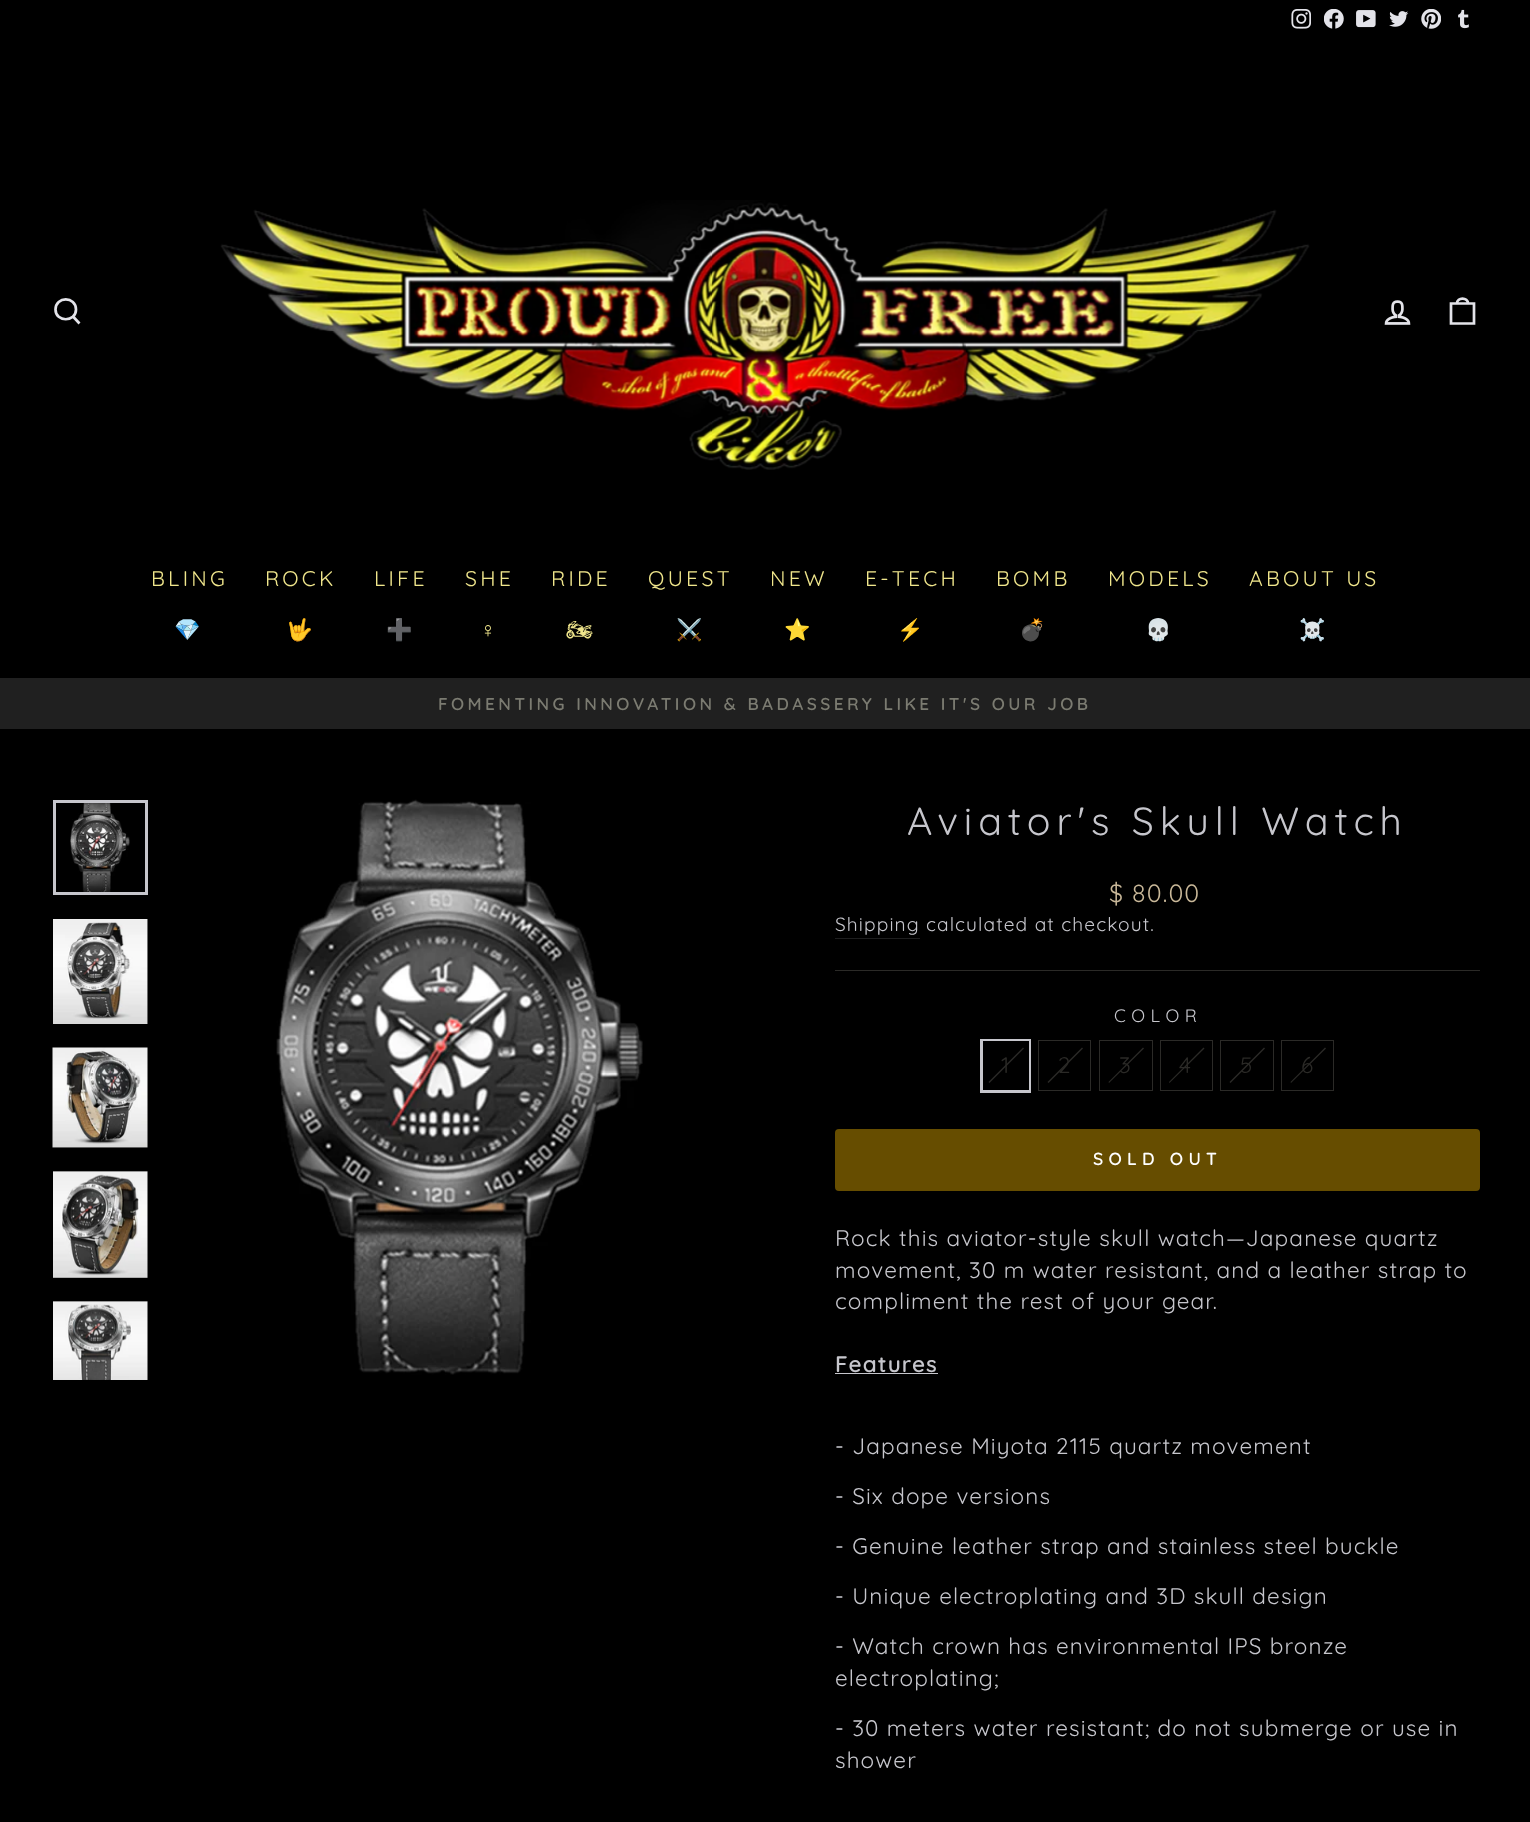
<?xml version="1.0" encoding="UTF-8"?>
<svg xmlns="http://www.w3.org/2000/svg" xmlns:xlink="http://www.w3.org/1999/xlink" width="1530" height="1822">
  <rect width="100%" height="100%" fill="#000000" />
  <image x="1291" y="9" width="20" height="20" xlink:href="image1.png" />
  <image x="1324" y="9" width="20" height="20" xlink:href="image2.png" />
  <image x="1356" y="10" width="20" height="18" xlink:href="image3.png" />
  <image x="1389" y="11" width="20" height="16" xlink:href="image4.png" />
  <image x="1421" y="9" width="20" height="20" xlink:href="image5.png" />
  <image x="1458" y="9" width="11" height="20" xlink:href="image6.png" />
  <path d="M 76 309.5 c 0 13 -20.5 13 -20.5 0 c 0 -13.5 20.5 -13.5 20.5 0 z m 3.5 14 l -6.5 -7" fill="none" stroke="#e3e3e9" stroke-width="2.7" />
  <image x="220" y="200" width="1090" height="270" xlink:href="image7.png" />
  <image x="1384" y="300" width="27" height="25" xlink:href="image8.png" />
  <path d="M 1451 303.5 h 23 v 20 h -23 z m 6 0 c 0 -6.5 11 -6.5 11 0" fill="none" stroke="#e3e3e9" stroke-width="2.7" />
  <rect y="678" width="1530" height="51" fill="#202020" />
  <image x="70" y="803" width="60" height="89" xlink:href="image9.png" />
  <rect x="54.5" y="801.5" width="92" height="92" fill="none" stroke="#c6c6cc" stroke-width="3" />
  <image x="53" y="919" width="95" height="105" xlink:href="image10.png" />
  <image x="52" y="1047" width="96" height="101" xlink:href="image11.png" />
  <image x="53" y="1171" width="95" height="107" xlink:href="image12.png" />
  <image x="53" y="1301" width="95" height="79" xlink:href="image13.png" />
  <image x="276" y="799" width="367" height="576" xlink:href="image14.png" />
  <rect x="835" y="938" width="85" height="1" fill="#1e1e1f" />
  <rect x="835" y="970" width="645" height="1" fill="#2b2a27" />
  <rect x="981.5" y="1040.5" width="48" height="51" fill="none" stroke="#c6c6cc" stroke-width="3" />
  <rect x="983" y="1041" width="46" height="49" fill="#000000" />
  <path d="M 1023 1047.5 l 1 1 l -34.5 34.5 l -1 -1 z" fill="#2b2a27" />
  <rect x="1038.5" y="1040.5" width="52" height="50" fill="none" stroke="#2b2a27" />
  <path d="M 1082 1047.5 l 1 1 l -34.5 34.5 l -1 -1 z" fill="#2b2a27" />
  <rect x="1099.5" y="1040.5" width="53" height="50" fill="none" stroke="#2b2a27" />
  <path d="M 1143 1047.5 l 1 1 l -35 34.5 l -0.5 -1 z" fill="#2b2a27" />
  <rect x="1160.5" y="1040.5" width="52" height="50" fill="none" stroke="#2b2a27" />
  <path d="M 1203.5 1047.5 l 1 1 l -35 34.5 l -0.5 -1 z" fill="#2b2a27" />
  <rect x="1220.5" y="1040.5" width="53" height="50" fill="none" stroke="#2b2a27" />
  <path d="M 1264 1047.5 l 1 1 l -34.5 34.5 l -1 -1 z" fill="#2b2a27" />
  <rect x="1281.5" y="1040.5" width="52" height="50" fill="none" stroke="#2b2a27" />
  <path d="M 1325 1047.5 l 1 1 l -35 34.5 l -0.5 -1 z" fill="#2b2a27" />
  <rect x="835" y="1129" width="645" height="62" rx="4" fill="#664d00" />
  <rect x="835" y="1373" width="103" height="1" fill="#c6c6cc" />
  <text x="151" y="586" style="font-family: Quicksand; font-size: 21.25px; letter-spacing: 3.25px; fill: #f0e68c">BLING</text>
  <text x="174" y="637" style="font-family: Noto Color Emoji; font-size: 21.25px; letter-spacing: 3.25px; fill: #f0e68c">💎</text>
  <text x="265" y="586" style="font-family: Quicksand; font-size: 21.25px; letter-spacing: 3.25px; fill: #f0e68c">ROCK</text>
  <text x="286" y="637" style="font-family: Noto Color Emoji; font-size: 21.25px; letter-spacing: 3.25px; fill: #f0e68c">🤟</text>
  <text x="374" y="586" style="font-family: Quicksand; font-size: 21.25px; letter-spacing: 3.25px; fill: #f0e68c">LIFE</text>
  <text x="386" y="637" style="font-family: Noto Color Emoji; font-size: 21.25px; letter-spacing: 3.25px; fill: #f0e68c">➕</text>
  <text x="465" y="586" style="font-family: Quicksand; font-size: 21.25px; letter-spacing: 3.25px; fill: #f0e68c">SHE</text>
  <text x="480" y="637" style="font-family: Liberation Sans; font-size: 21.25px; letter-spacing: 3.25px; fill: #f0e68c">♀</text>
  <text x="551" y="586" style="font-family: Quicksand; font-size: 21.25px; letter-spacing: 3.25px; fill: #f0e68c">RIDE</text>
  <text x="566" y="637" style="font-family: Noto Emoji; font-size: 21.25px; letter-spacing: 3.25px; fill: #f0e68c">🏍</text>
  <text x="648" y="586" style="font-family: Quicksand; font-size: 21.25px; letter-spacing: 3.25px; fill: #f0e68c">QUEST</text>
  <text x="676" y="637" style="font-family: Noto Color Emoji; font-size: 21.25px; letter-spacing: 3.25px; fill: #f0e68c">⚔️</text>
  <text x="770" y="586" style="font-family: Quicksand; font-size: 21.25px; letter-spacing: 3.25px; fill: #f0e68c">NEW</text>
  <text x="784" y="637" style="font-family: Noto Color Emoji; font-size: 21.25px; letter-spacing: 3.25px; fill: #f0e68c">⭐</text>
  <text x="865" y="586" style="font-family: Quicksand; font-size: 21.25px; letter-spacing: 3.25px; fill: #f0e68c">E-TECH</text>
  <text x="897" y="637" style="font-family: Noto Color Emoji; font-size: 21.25px; letter-spacing: 3.25px; fill: #f0e68c">⚡</text>
  <text x="996" y="586" style="font-family: Quicksand; font-size: 21.25px; letter-spacing: 3.25px; fill: #f0e68c">BOMB</text>
  <text x="1019" y="637" style="font-family: Noto Color Emoji; font-size: 21.25px; letter-spacing: 3.25px; fill: #f0e68c">💣</text>
  <text x="1108" y="586" style="font-family: Quicksand; font-size: 21.25px; letter-spacing: 3.25px; fill: #f0e68c">MODELS</text>
  <text x="1145" y="637" style="font-family: Noto Color Emoji; font-size: 21.25px; letter-spacing: 3.25px; fill: #f0e68c">💀</text>
  <text x="1249" y="586" style="font-family: Quicksand; font-size: 21.25px; letter-spacing: 3.25px; fill: #f0e68c">ABOUT US</text>
  <text x="1299" y="637" style="font-family: Noto Color Emoji; font-size: 21.25px; letter-spacing: 3.25px; fill: #f0e68c">☠️</text>
  <text x="438" y="710" style="font-family: Quicksand; font-size: 17.2px; font-weight: 600; letter-spacing: 3.45px; fill: #7b7b71">FOMENTING INNOVATION &amp; BADASSERY LIKE IT'S OUR JOB</text>
  <text x="907" y="835" style="font-family: Quicksand; font-size: 39.25px; letter-spacing: 5.9px; fill: #c6c6cc">Aviator's Skull Watch</text>
  <text x="1109" y="902" style="font-family: Quicksand; font-size: 25px; letter-spacing: 1.12px; fill: #c9b899">$ 80.00</text>
  <text x="835" y="931" style="font-family: Quicksand; font-size: 19.1px; letter-spacing: 1.12px; fill: #c6c6cc">Shipping</text>
  <text x="926" y="931" style="font-family: Quicksand; font-size: 19.1px; letter-spacing: 1.12px; fill: #c6c6cc">calculated at checkout.</text>
  <text x="1114" y="1022" style="font-family: Quicksand; font-size: 18px; letter-spacing: 5.5px; fill: #c6c6cc">COLOR</text>
  <text x="1001" y="1073" style="font-family: Quicksand; font-size: 22.5px; letter-spacing: 1.12px; fill: #2b2a27">1</text>
  <text x="1058" y="1073" style="font-family: Quicksand; font-size: 22.5px; letter-spacing: 1.12px; fill: #2b2a27">2</text>
  <text x="1119" y="1073" style="font-family: Quicksand; font-size: 22.5px; letter-spacing: 1.12px; fill: #2b2a27">3</text>
  <text x="1179" y="1073" style="font-family: Quicksand; font-size: 22.5px; letter-spacing: 1.12px; fill: #2b2a27">4</text>
  <text x="1240" y="1073" style="font-family: Quicksand; font-size: 22.5px; letter-spacing: 1.12px; fill: #2b2a27">5</text>
  <text x="1301" y="1073" style="font-family: Quicksand; font-size: 22.5px; letter-spacing: 1.12px; fill: #2b2a27">6</text>
  <text x="1093" y="1165" style="font-family: Quicksand; font-size: 17.5px; font-weight: 600; letter-spacing: 5.25px; fill: #ffffff">SOLD OUT</text>
  <text x="835" y="1246" style="font-family: Quicksand; font-size: 22.5px; letter-spacing: 1.12px; fill: #c6c6cc">Rock this aviator-style skull watch—Japanese quartz</text>
  <text x="835" y="1278" style="font-family: Quicksand; font-size: 22.5px; letter-spacing: 1.12px; fill: #c6c6cc">movement, 30 m water resistant, and a leather strap to</text>
  <text x="835" y="1309" style="font-family: Quicksand; font-size: 22.5px; letter-spacing: 1.12px; fill: #c6c6cc">compliment the rest of your gear.</text>
  <text x="835" y="1372" style="font-family: Quicksand; font-size: 22.5px; font-weight: 600; letter-spacing: 1.12px; fill: #c6c6cc">Features</text>
  <text x="835" y="1454" style="font-family: Quicksand; font-size: 22.5px; letter-spacing: 1.12px; fill: #c6c6cc">- Japanese Miyota 2115 quartz movement</text>
  <text x="835" y="1504" style="font-family: Quicksand; font-size: 22.5px; letter-spacing: 1.12px; fill: #c6c6cc">- Six dope versions</text>
  <text x="835" y="1554" style="font-family: Quicksand; font-size: 22.5px; letter-spacing: 1.12px; fill: #c6c6cc">- Genuine leather strap and stainless steel buckle</text>
  <text x="835" y="1604" style="font-family: Quicksand; font-size: 22.5px; letter-spacing: 1.12px; fill: #c6c6cc">- Unique electroplating and 3D skull design</text>
  <text x="835" y="1654" style="font-family: Quicksand; font-size: 22.5px; letter-spacing: 1.12px; fill: #c6c6cc">- Watch crown has environmental IPS bronze</text>
  <text x="835" y="1686" style="font-family: Quicksand; font-size: 22.5px; letter-spacing: 1.12px; fill: #c6c6cc">electroplating;</text>
  <text x="835" y="1736" style="font-family: Quicksand; font-size: 22.5px; letter-spacing: 1.12px; fill: #c6c6cc">- 30 meters water resistant; do not submerge or use in</text>
  <text x="835" y="1768" style="font-family: Quicksand; font-size: 22.5px; letter-spacing: 1.12px; fill: #c6c6cc">shower</text>
</svg>
